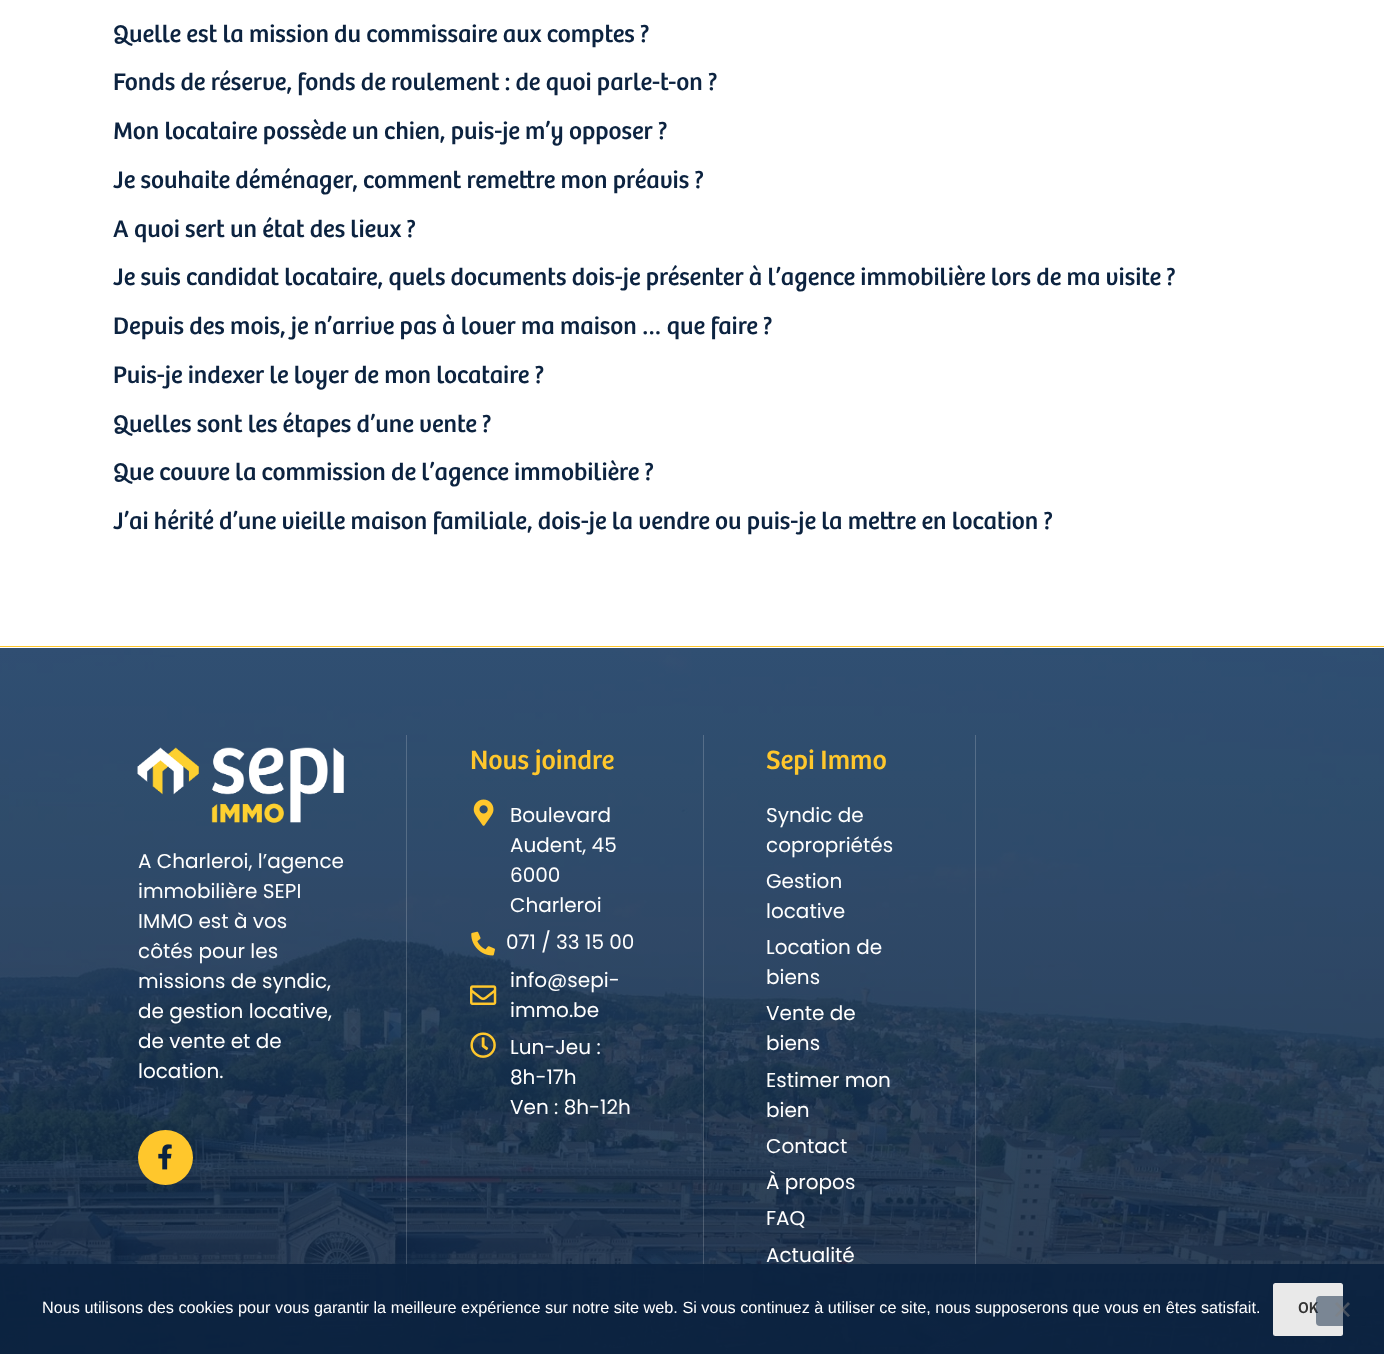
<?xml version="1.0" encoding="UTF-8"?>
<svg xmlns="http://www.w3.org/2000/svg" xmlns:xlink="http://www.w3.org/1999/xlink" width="1384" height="1354">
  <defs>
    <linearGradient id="g1" gradientUnits="userSpaceOnUse" x1="693" y1="648" x2="693" y2="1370"><stop offset="0" stop-color="#1d3a5d" /><stop offset="1" stop-color="#0c2340" /></linearGradient>
  </defs>
  <rect width="100%" height="100%" fill="#ffffff" />
  <rect y="648" width="1384" height="706" fill="url(#g1)" />
  <rect y="646" width="1384" height="1" fill="#ffc72c" />
  <image x="0" y="648" width="1384" height="706" xlink:href="image1.png" />
  <image x="137" y="747" width="207" height="76" xlink:href="image2.png" />
  <circle cx="165.5" cy="1157.5" r="27.5" fill="#ffc72c" />
  <image x="158" y="1144" width="14" height="26" xlink:href="image3.png" />
  <rect x="703" y="735" width="1" height="548" fill="#f6f6f6" fill-opacity="0.2" />
  <rect x="406" y="735" width="1" height="548" fill="#f6f6f6" fill-opacity="0.2" />
  <image x="473" y="799" width="21" height="27" xlink:href="image4.png" />
  <image x="471" y="931" width="24" height="25" xlink:href="image5.png" />
  <image x="470" y="985" width="27" height="20" xlink:href="image6.png" />
  <image x="470" y="1032" width="26" height="26" xlink:href="image7.png" />
  <rect x="975" y="735" width="1" height="548" fill="#f6f6f6" fill-opacity="0.2" />
  <rect y="1264" width="1384" height="90" fill="#0c2340" fill-opacity="0.95" />
  <rect x="1273" y="1283" width="70" height="53" rx="2.5" fill="#e9e9e9" />
  <text x="113" y="42" style="font-family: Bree; font-size: 25px; fill: #0c2340">Quelle est la mission du commissaire aux comptes ?</text>
  <text x="113" y="90" style="font-family: Bree; font-size: 25px; fill: #0c2340">Fonds de réserve, fonds de roulement : de quoi parle-t-on ?</text>
  <text x="113" y="139" style="font-family: Bree; font-size: 25px; fill: #0c2340">Mon locataire possède un chien, puis-je m’y opposer ?</text>
  <text x="113" y="188" style="font-family: Bree; font-size: 25px; fill: #0c2340">Je souhaite déménager, comment remettre mon préavis ?</text>
  <text x="113" y="237" style="font-family: Bree; font-size: 25px; fill: #0c2340">A quoi sert un état des lieux ?</text>
  <text x="113" y="285" style="font-family: Bree; font-size: 25px; fill: #0c2340">Je suis candidat locataire, quels documents dois-je présenter à l’agence immobilière lors de ma visite ?</text>
  <text x="113" y="334" style="font-family: Bree; font-size: 25px; fill: #0c2340">Depuis des mois, je n’arrive pas à louer ma maison … que faire ?</text>
  <text x="113" y="383" style="font-family: Bree; font-size: 25px; fill: #0c2340">Puis-je indexer le loyer de mon locataire ?</text>
  <text x="113" y="432" style="font-family: Bree; font-size: 25px; fill: #0c2340">Quelles sont les étapes d’une vente ?</text>
  <text x="113" y="480" style="font-family: Bree; font-size: 25px; fill: #0c2340">Que couvre la commission de l’agence immobilière ?</text>
  <text x="113" y="529" style="font-family: Bree; font-size: 25px; fill: #0c2340">J’ai hérité d’une vieille maison familiale, dois-je la vendre ou puis-je la mettre en location ?</text>
  <text x="138" y="868" style="font-family: Poppins; font-size: 20px; fill: #ffffff">A Charleroi, l’agence</text>
  <text x="138" y="898" style="font-family: Poppins; font-size: 20px; fill: #ffffff">immobilière SEPI</text>
  <text x="138" y="928" style="font-family: Poppins; font-size: 20px; fill: #ffffff">IMMO est à vos</text>
  <text x="138" y="958" style="font-family: Poppins; font-size: 20px; fill: #ffffff">côtés pour les</text>
  <text x="138" y="988" style="font-family: Poppins; font-size: 20px; fill: #ffffff">missions de syndic,</text>
  <text x="138" y="1018" style="font-family: Poppins; font-size: 20px; fill: #ffffff">de gestion locative,</text>
  <text x="138" y="1048" style="font-family: Poppins; font-size: 20px; fill: #ffffff">de vente et de</text>
  <text x="138" y="1078" style="font-family: Poppins; font-size: 20px; fill: #ffffff">location.</text>
  <text x="470" y="769" style="font-family: Bree; font-size: 27.5px; fill: #ffc72c">Nous joindre</text>
  <text x="510" y="822" style="font-family: Poppins; font-size: 20px; fill: #ffffff">Boulevard</text>
  <text x="510" y="852" style="font-family: Poppins; font-size: 20px; fill: #ffffff">Audent, 45</text>
  <text x="510" y="882" style="font-family: Poppins; font-size: 20px; fill: #ffffff">6000</text>
  <text x="510" y="912" style="font-family: Poppins; font-size: 20px; fill: #ffffff">Charleroi</text>
  <text x="506" y="949" style="font-family: Poppins; font-size: 20px; fill: #ffffff">071 / 33 15 00</text>
  <text x="510" y="987" style="font-family: Poppins; font-size: 20px; fill: #ffffff">info@sepi-</text>
  <text x="510" y="1017" style="font-family: Poppins; font-size: 20px; fill: #ffffff">immo.be</text>
  <text x="510" y="1054" style="font-family: Poppins; font-size: 20px; fill: #ffffff">Lun-Jeu :</text>
  <text x="510" y="1084" style="font-family: Poppins; font-size: 20px; fill: #ffffff">8h-17h</text>
  <text x="510" y="1114" style="font-family: Poppins; font-size: 20px; fill: #ffffff">Ven : 8h-12h</text>
  <text x="766" y="769" style="font-family: Bree; font-size: 27.5px; fill: #ffc72c">Sepi Immo</text>
  <text x="766" y="822" style="font-family: Poppins; font-size: 20px; fill: #ffffff">Syndic de</text>
  <text x="766" y="852" style="font-family: Poppins; font-size: 20px; fill: #ffffff">copropriétés</text>
  <text x="766" y="888" style="font-family: Poppins; font-size: 20px; fill: #ffffff">Gestion</text>
  <text x="766" y="918" style="font-family: Poppins; font-size: 20px; fill: #ffffff">locative</text>
  <text x="766" y="954" style="font-family: Poppins; font-size: 20px; fill: #ffffff">Location de</text>
  <text x="766" y="984" style="font-family: Poppins; font-size: 20px; fill: #ffffff">biens</text>
  <text x="766" y="1020" style="font-family: Poppins; font-size: 20px; fill: #ffffff">Vente de</text>
  <text x="766" y="1050" style="font-family: Poppins; font-size: 20px; fill: #ffffff">biens</text>
  <text x="766" y="1087" style="font-family: Poppins; font-size: 20px; fill: #ffffff">Estimer mon</text>
  <text x="766" y="1117" style="font-family: Poppins; font-size: 20px; fill: #ffffff">bien</text>
  <text x="766" y="1153" style="font-family: Poppins; font-size: 20px; fill: #ffffff">Contact</text>
  <text x="766" y="1189" style="font-family: Poppins; font-size: 20px; fill: #ffffff">À propos</text>
  <text x="766" y="1225" style="font-family: Poppins; font-size: 20px; fill: #ffffff">FAQ</text>
  <text x="766" y="1262" style="font-family: Poppins; font-size: 20px; fill: #ffffff">Actualité</text>
  <text x="42" y="1313" style="font-family: Liberation Sans; font-size: 16.25px; fill: #ffffff">Nous utilisons des cookies pour vous garantir la meilleure expérience sur notre site web. Si vous continuez à utiliser ce site, nous supposerons que vous en êtes satisfait.</text>
  <text x="1298" y="1313" style="font-family: Bree; font-size: 16.25px; fill: #333333">OK</text>
  <rect x="1316" y="1296" width="50" height="30" rx="4" fill="#0c2340" fill-opacity="0.5" />
  <path d="M 1348 1302 l 2 2 l -13 13 l -2 -1.5 z" fill="#808080" fill-opacity="0.5" />
  <path d="M 1335 1304 l 2 -2 l 13 13.5 l -2 1.5 z" fill="#808080" fill-opacity="0.5" />
</svg>
